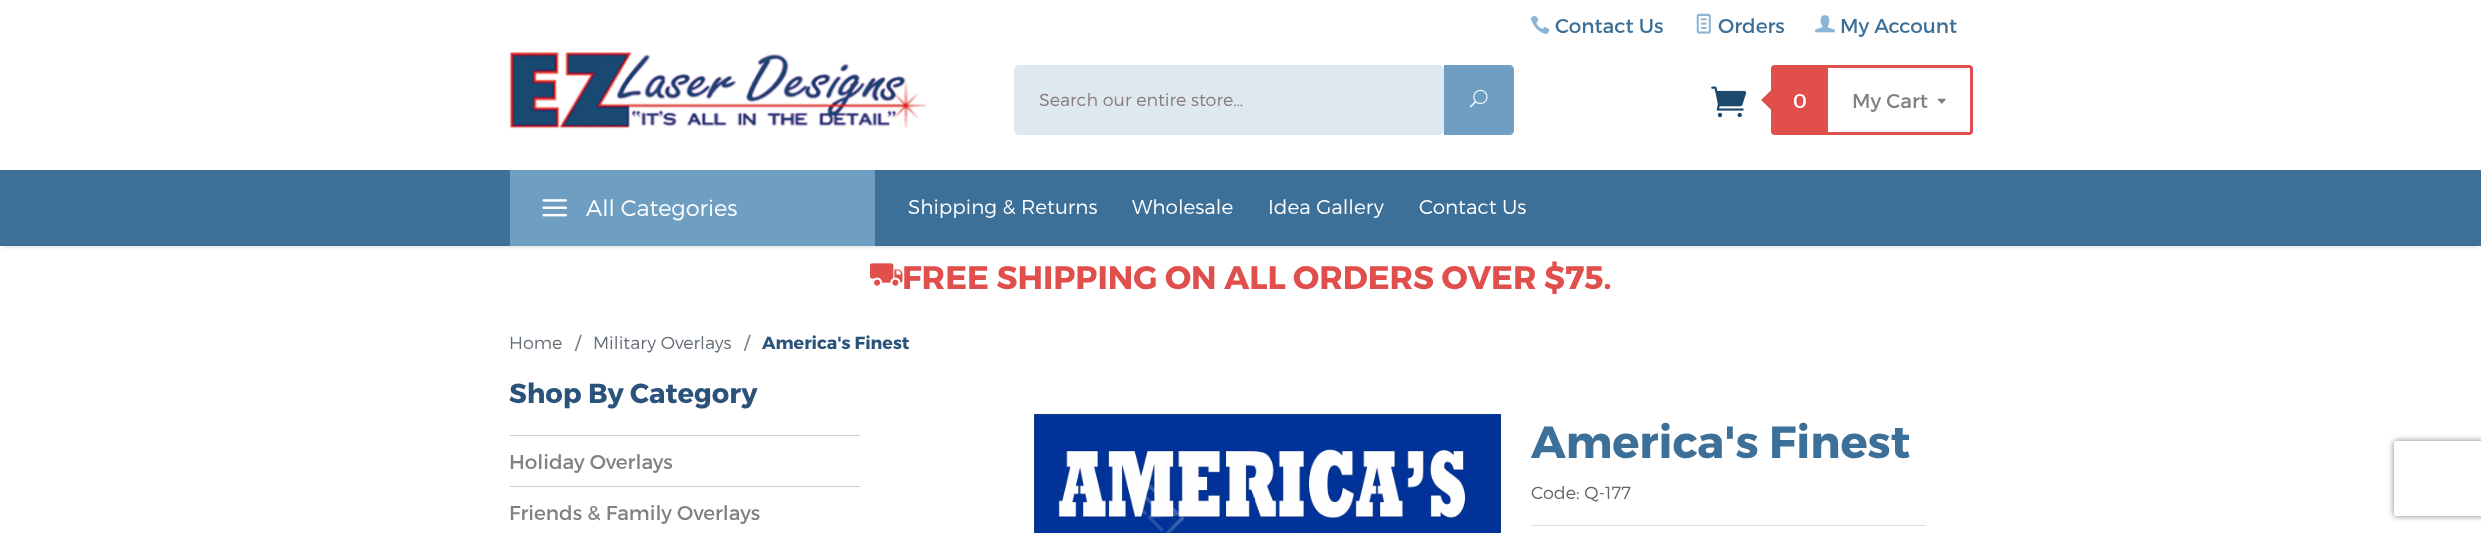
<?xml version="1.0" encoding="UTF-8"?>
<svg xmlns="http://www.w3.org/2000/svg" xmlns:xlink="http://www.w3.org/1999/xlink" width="2481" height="533">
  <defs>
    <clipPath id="clip1"><path d="M 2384 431 h 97 v 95 h -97 z m 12.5 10 h 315 c 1.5 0 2.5 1 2.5 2.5 v 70 c 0 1.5 -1 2.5 -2.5 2.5 h -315 c -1.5 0 -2.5 -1 -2.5 -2.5 v -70 c 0 -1.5 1 -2.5 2.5 -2.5 z" clip-rule="evenodd" /></clipPath>
  </defs>
  <rect width="100%" height="100%" fill="#ffffff" />
  <image x="1530" y="15" width="20" height="20" xlink:href="image1.png" />
  <image x="1696" y="13" width="15" height="21" xlink:href="image2.png" />
  <image x="1815" y="15" width="20" height="18" xlink:href="image3.png" />
  <image x="509" y="52" width="418" height="77" xlink:href="image4.png" />
  <rect x="1014" y="65" width="430" height="70" rx="5" fill="#dee8ef" />
  <path d="M 1444 65 h 65 c 3 0 5 2 5 5 v 60 c 0 3 -2 5 -5 5 h -65 z" fill="#6f9ec3" />
  <image x="1470" y="89" width="18" height="19" xlink:href="image5.png" />
  <image x="1711" y="86" width="36" height="32" xlink:href="image6.png" />
  <rect x="1772.5" y="66.5" width="199" height="67" rx="2.5" fill="none" stroke="#e04f4c" stroke-width="3" />
  <path d="M 1774 87.5 v 25 l -13 -12.5 z" fill="#e04f4c" />
  <rect x="1774" y="68" width="54" height="64" fill="#e04f4c" />
  <image x="1937" y="98" width="9" height="6" xlink:href="image7.png" />
  <rect x="3" y="175" width="2476" height="71" fill="#000000" fill-opacity="0.2" filter="blur(2.5px)" />
  <rect y="170" width="2481" height="76" fill="#3d7098" />
  <rect x="510" y="170" width="365" height="76" fill="#6f9ec3" />
  <image x="542" y="199" width="25" height="18" xlink:href="image8.png" />
  <image x="870" y="263" width="33" height="23" xlink:href="image9.png" />
  <rect x="510" y="435" width="350" height="1" fill="#cccccc" />
  <rect x="510" y="486" width="350" height="1" fill="#cccccc" />
  <image x="1034" y="414" width="467" height="119" xlink:href="image10.png" />
  <rect x="1531" y="525" width="395" height="1" fill="#dfe1e1" />
  <g clip-path="url(#clip1)">
    <rect x="2394" y="441" width="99" height="75" rx="2.5" fill="#808080" filter="blur(3px)" />
  </g>
  <text x="1555" y="33" style="font-family: Montserrat; font-size: 20px; fill: #3d7098">Contact Us</text>
  <text x="1718" y="33" style="font-family: Montserrat; font-size: 20px; fill: #3d7098">Orders</text>
  <text x="1840" y="33" style="font-family: Montserrat; font-size: 20px; fill: #3d7098">My Account</text>
  <text x="1039" y="106" style="font-family: Montserrat; font-size: 17.5px; font-weight: 300; fill: #8a7b7b">Search our entire store…</text>
  <text x="1793" y="108" style="font-family: Montserrat; font-size: 20px; fill: #ffffff">0</text>
  <text x="1852" y="108" style="font-family: Montserrat; font-size: 20px; fill: #818181">My Cart</text>
  <text x="586" y="216" style="font-family: Montserrat; font-size: 22.5px; font-weight: 300; fill: #ffffff">All Categories</text>
  <text x="908" y="214" style="font-family: Montserrat; font-size: 20px; font-weight: 300; fill: #ffffff">Shipping &amp; Returns</text>
  <text x="1132" y="214" style="font-family: Montserrat; font-size: 20px; font-weight: 300; fill: #ffffff">Wholesale</text>
  <text x="1268" y="214" style="font-family: Montserrat; font-size: 20px; font-weight: 300; fill: #ffffff">Idea Gallery</text>
  <text x="1419" y="214" style="font-family: Montserrat; font-size: 20px; font-weight: 300; fill: #ffffff">Contact Us</text>
  <text x="902" y="289" style="font-family: Montserrat; font-size: 32.5px; font-weight: bold; fill: #e04f4c">FREE SHIPPING ON ALL ORDERS OVER $75.</text>
  <text x="509" y="349" style="font-family: Montserrat; font-size: 17.5px; font-weight: 300; fill: #656d78">Home</text>
  <text x="575" y="349" style="font-family: Montserrat; font-size: 17.5px; fill: #818181">/</text>
  <text x="593" y="349" style="font-family: Montserrat; font-size: 17.5px; font-weight: 300; fill: #656d78">Military Overlays</text>
  <text x="744" y="349" style="font-family: Montserrat; font-size: 17.5px; fill: #818181">/</text>
  <text x="762" y="349" style="font-family: Montserrat; font-size: 17.5px; font-weight: bold; fill: #2a527a">America's Finest</text>
  <text x="509" y="403" style="font-family: Montserrat; font-size: 27.5px; font-weight: bold; fill: #2a527a">Shop By Category</text>
  <text x="509" y="469" style="font-family: Montserrat; font-size: 20px; fill: #818181">Holiday Overlays</text>
  <text x="509" y="520" style="font-family: Montserrat; font-size: 20px; fill: #818181">Friends &amp; Family Overlays</text>
  <text x="1531" y="458" style="font-family: Montserrat; font-size: 45px; font-weight: bold; fill: #3d7098">America's Finest</text>
  <text x="1531" y="499" style="font-family: Montserrat; font-size: 17.5px; font-weight: 300; fill: #656565">Code: Q-177</text>
</svg>
